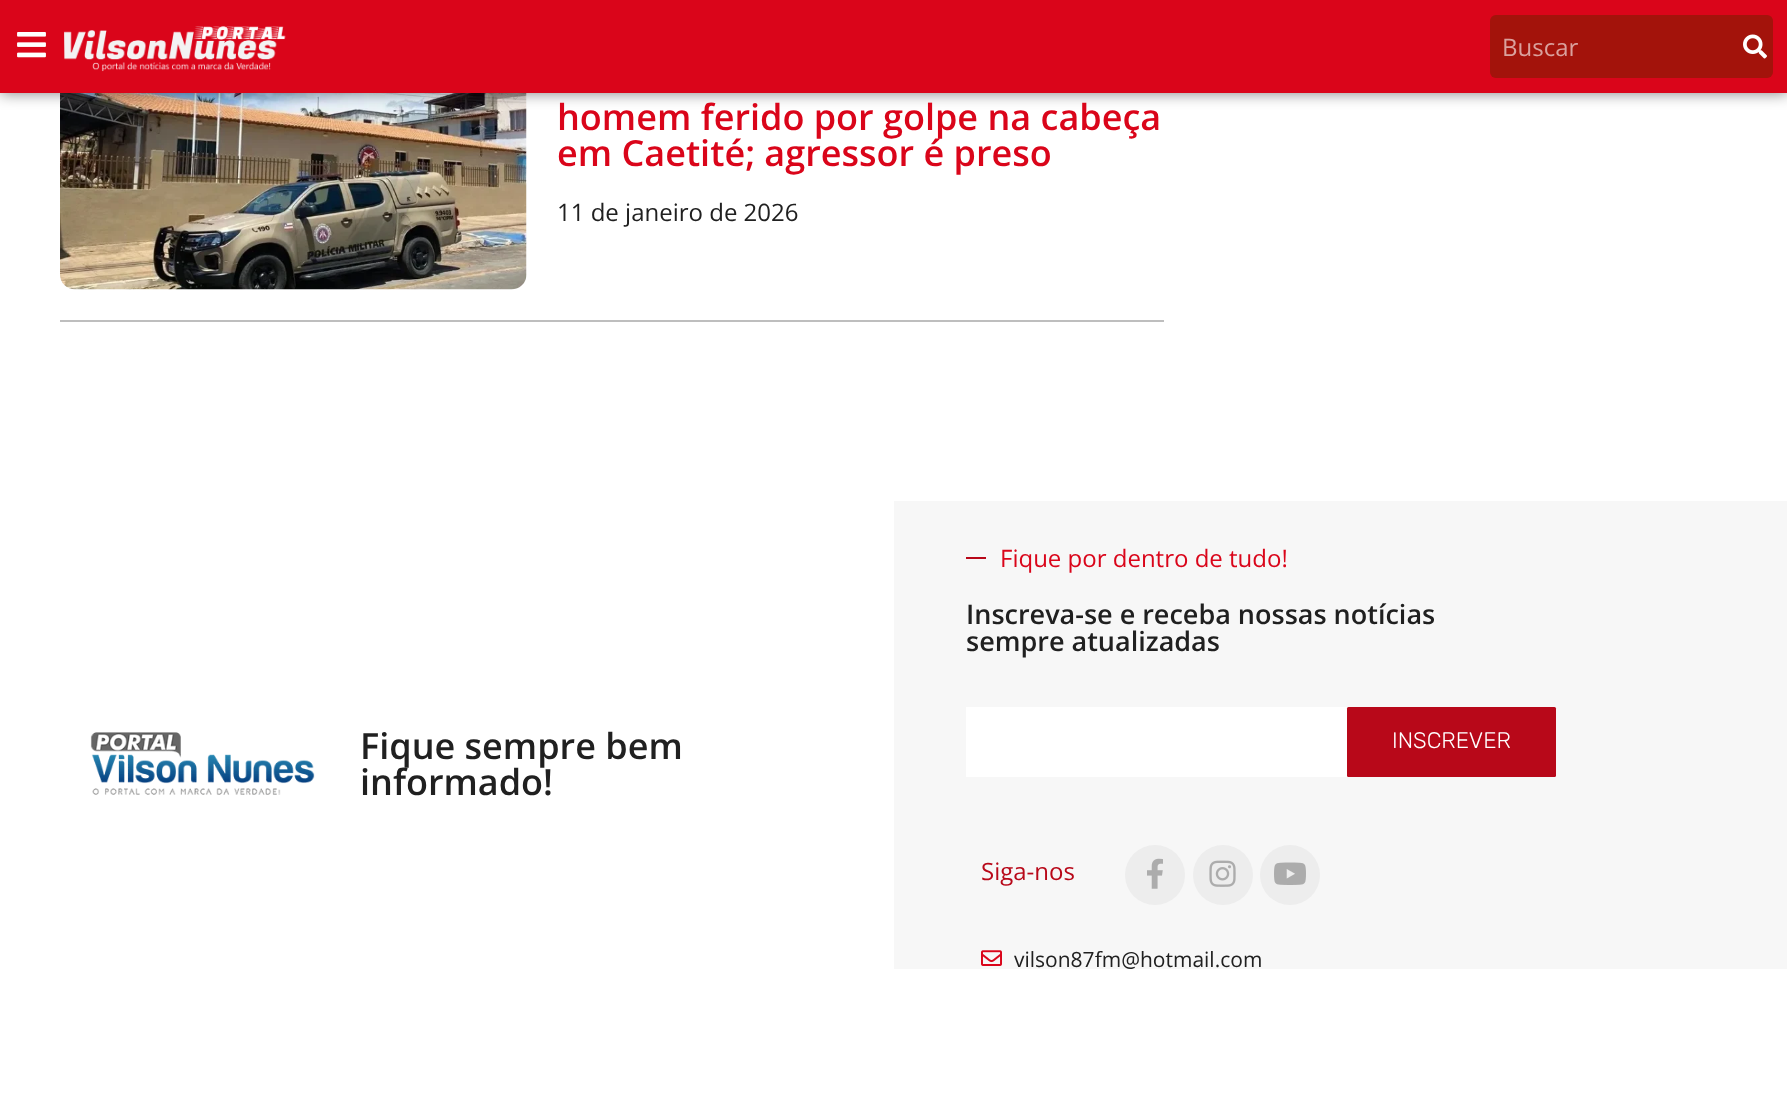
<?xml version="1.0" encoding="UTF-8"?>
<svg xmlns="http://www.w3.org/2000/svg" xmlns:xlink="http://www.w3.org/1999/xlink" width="1787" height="1104">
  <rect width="100%" height="100%" fill="#ffffff" />
  <image x="60" y="93" width="467" height="197" xlink:href="image4.png" />
  <rect width="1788" height="93" fill="#000000" fill-opacity="0.5" filter="blur(7.5px)" />
  <rect width="1787" height="93" fill="#da051a" />
  <image x="17" y="32" width="29" height="26" xlink:href="image1.png" />
  <image x="64" y="26" width="222" height="46" xlink:href="image2.png" />
  <rect x="1490" y="15" width="283" height="63" rx="6" fill="#a3130b" />
  <image x="1743" y="34" width="24" height="25" xlink:href="image3.png" />
  <rect x="60" y="320" width="1104" height="2" fill="#bebebe" />
  <image x="90" y="732" width="225" height="63" xlink:href="image5.png" />
  <rect x="894" y="501" width="893" height="468" fill="#f7f7f7" />
  <rect x="966" y="557" width="20" height="2" fill="#b80819" />
  <rect x="966" y="707" width="381" height="70" fill="#ffffff" />
  <rect x="1347" y="707" width="209" height="70" rx="1.5" fill="#b80819" />
  <circle cx="1155" cy="875" r="30" fill="#ededed" />
  <image x="1147" y="858" width="16" height="31" xlink:href="image6.png" />
  <circle cx="1223" cy="875" r="30" fill="#ededed" />
  <image x="1209" y="860" width="27" height="27" xlink:href="image7.png" />
  <circle cx="1290" cy="875" r="30" fill="#ededed" />
  <image x="1274" y="862" width="32" height="23" xlink:href="image8.png" />
  <image x="981" y="950" width="21" height="16" xlink:href="image9.png" />
  <text x="1502" y="56" style="font-family: Open Sans; font-size: 24px; fill: #daa19d">Buscar</text>
  <text x="557" y="130" style="font-family: Open Sans; font-size: 36px; font-weight: 600; fill: #da051a">homem ferido por golpe na cabeça</text>
  <text x="557" y="166" style="font-family: Open Sans; font-size: 36px; font-weight: 600; fill: #da051a">em Caetité; agressor é preso</text>
  <text x="557" y="221" style="font-family: Open Sans; font-size: 24px; fill: #202020">11 de janeiro de 2026</text>
  <text x="360" y="759" style="font-family: Open Sans; font-size: 36px; font-weight: 600; fill: #202020">Fique sempre bem</text>
  <text x="360" y="795" style="font-family: Open Sans; font-size: 36px; font-weight: 600; fill: #202020">informado!</text>
  <text x="1000" y="567" style="font-family: Open Sans; font-size: 24px; fill: #da051a">Fique por dentro de tudo!</text>
  <text x="966" y="624" style="font-family: Open Sans; font-size: 27px; font-weight: 600; fill: #202020">Inscreva-se e receba nossas notícias</text>
  <text x="966" y="651" style="font-family: Open Sans; font-size: 27px; font-weight: 600; fill: #202020">sempre atualizadas</text>
  <text x="1392" y="748" style="font-family: Rubik; font-size: 22.5px; font-weight: 300; fill: #ffffff">INSCREVER</text>
  <text x="981" y="880" style="font-family: Open Sans; font-size: 24px; fill: #b80819">Siga-nos</text>
  <text x="1014" y="967" style="font-family: Open Sans; font-size: 21px; fill: #202020">vilson87fm@hotmail.com</text>
</svg>
